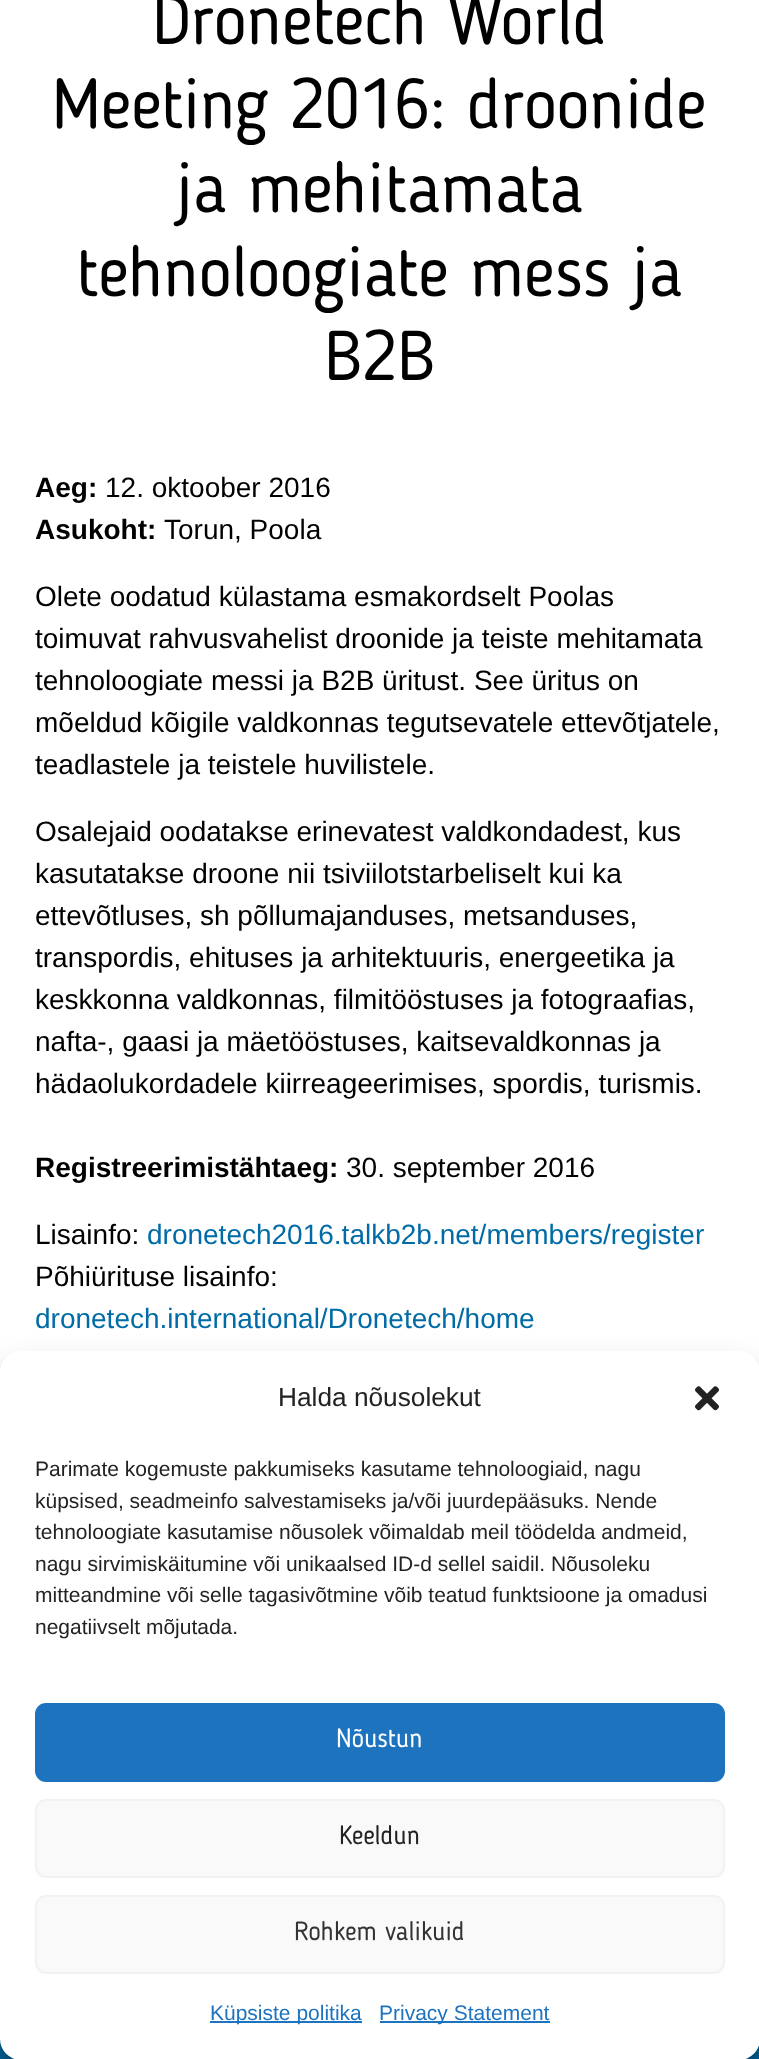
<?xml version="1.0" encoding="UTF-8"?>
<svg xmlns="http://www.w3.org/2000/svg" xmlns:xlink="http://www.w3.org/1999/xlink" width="759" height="2059">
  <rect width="100%" height="100%" fill="#ffffff" />
  <rect y="2039" width="759" height="20" fill="#006ba6" />
  <rect y="1362" width="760" height="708" rx="21" fill="#000000" fill-opacity="0.23" filter="blur(5px)" />
  <rect y="1369" width="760" height="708" rx="21" fill="#000000" fill-opacity="0.19" filter="blur(17.5px)" />
  <rect y="1351" width="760" height="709" rx="21" fill="#ffffff" />
  <image x="695" y="1386" width="24" height="25" xlink:href="image1.png" />
  <rect x="36" y="1704" width="688" height="77" rx="10" fill="#1e73be" stroke="#1e73be" stroke-width="2" />
  <rect x="36" y="1800" width="688" height="77" rx="10" fill="#f9f9f9" stroke="#f2f2f2" stroke-width="2" />
  <rect x="36" y="1896" width="688" height="77" rx="10" fill="#f9f9f9" stroke="#f2f2f2" stroke-width="2" />
  <rect x="210" y="2021" width="152" height="2" fill="#1e73be" />
  <rect x="380" y="2021" width="170" height="2" fill="#1e73be" />
  <text x="152" y="44" style="font-family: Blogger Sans; font-size: 70px; fill: #000000">Dronetech World</text>
  <text x="52" y="128" style="font-family: Blogger Sans; font-size: 70px; fill: #000000">Meeting 2016: droonide</text>
  <text x="176" y="212" style="font-family: Blogger Sans; font-size: 70px; fill: #000000">ja mehitamata</text>
  <text x="76" y="296" style="font-family: Blogger Sans; font-size: 70px; fill: #000000">tehnoloogiate mess ja</text>
  <text x="324" y="380" style="font-family: Blogger Sans; font-size: 70px; fill: #000000">B2B</text>
  <text x="35" y="497" style="font-family: Liberation Sans; font-size: 28px; font-weight: bold; fill: #000000">Aeg:</text>
  <text x="105" y="497" style="font-family: Liberation Sans; font-size: 28px; fill: #000000">12. oktoober 2016</text>
  <text x="35" y="539" style="font-family: Liberation Sans; font-size: 28px; font-weight: bold; fill: #000000">Asukoht:</text>
  <text x="164" y="539" style="font-family: Liberation Sans; font-size: 28px; fill: #000000">Torun, Poola</text>
  <text x="35" y="606" style="font-family: Liberation Sans; font-size: 28px; fill: #000000">Olete oodatud külastama esmakordselt Poolas</text>
  <text x="35" y="648" style="font-family: Liberation Sans; font-size: 28px; fill: #000000">toimuvat rahvusvahelist droonide ja teiste mehitamata</text>
  <text x="35" y="690" style="font-family: Liberation Sans; font-size: 28px; fill: #000000">tehnoloogiate messi ja B2B üritust. See üritus on</text>
  <text x="35" y="732" style="font-family: Liberation Sans; font-size: 28px; fill: #000000">mõeldud kõigile valdkonnas tegutsevatele ettevõtjatele,</text>
  <text x="35" y="774" style="font-family: Liberation Sans; font-size: 28px; fill: #000000">teadlastele ja teistele huvilistele.</text>
  <text x="35" y="841" style="font-family: Liberation Sans; font-size: 28px; fill: #000000">Osalejaid oodatakse erinevatest valdkondadest, kus</text>
  <text x="35" y="883" style="font-family: Liberation Sans; font-size: 28px; fill: #000000">kasutatakse droone nii tsiviilotstarbeliselt kui ka</text>
  <text x="35" y="925" style="font-family: Liberation Sans; font-size: 28px; fill: #000000">ettevõtluses, sh põllumajanduses, metsanduses,</text>
  <text x="35" y="967" style="font-family: Liberation Sans; font-size: 28px; fill: #000000">transpordis, ehituses ja arhitektuuris, energeetika ja</text>
  <text x="35" y="1009" style="font-family: Liberation Sans; font-size: 28px; fill: #000000">keskkonna valdkonnas, filmitööstuses ja fotograafias,</text>
  <text x="35" y="1051" style="font-family: Liberation Sans; font-size: 28px; fill: #000000">nafta-, gaasi ja mäetööstuses, kaitsevaldkonnas ja</text>
  <text x="35" y="1093" style="font-family: Liberation Sans; font-size: 28px; fill: #000000">hädaolukordadele kiirreageerimises, spordis, turismis.</text>
  <text x="35" y="1177" style="font-family: Liberation Sans; font-size: 28px; font-weight: bold; fill: #000000">Registreerimistähtaeg:</text>
  <text x="346" y="1177" style="font-family: Liberation Sans; font-size: 28px; fill: #000000">30. september 2016</text>
  <text x="35" y="1244" style="font-family: Liberation Sans; font-size: 28px; fill: #000000">Lisainfo:</text>
  <text x="147" y="1244" style="font-family: Liberation Sans; font-size: 28px; fill: #006ba6">dronetech2016.talkb2b.net/members/register</text>
  <text x="35" y="1286" style="font-family: Liberation Sans; font-size: 28px; fill: #000000">Põhiürituse lisainfo:</text>
  <text x="35" y="1328" style="font-family: Liberation Sans; font-size: 28px; fill: #006ba6">dronetech.international/Dronetech/home</text>
  <text x="278" y="1406" style="font-family: Liberation Sans; font-size: 26.25px; fill: #222222">Halda nõusolekut</text>
  <text x="35" y="1476" style="font-family: Liberation Sans; font-size: 21px; fill: #222222">Parimate kogemuste pakkumiseks kasutame tehnoloogiaid, nagu</text>
  <text x="35" y="1508" style="font-family: Liberation Sans; font-size: 21px; fill: #222222">küpsised, seadmeinfo salvestamiseks ja/või juurdepääsuks. Nende</text>
  <text x="35" y="1539" style="font-family: Liberation Sans; font-size: 21px; fill: #222222">tehnoloogiate kasutamise nõusolek võimaldab meil töödelda andmeid,</text>
  <text x="35" y="1571" style="font-family: Liberation Sans; font-size: 21px; fill: #222222">nagu sirvimiskäitumine või unikaalsed ID-d sellel saidil. Nõusoleku</text>
  <text x="35" y="1602" style="font-family: Liberation Sans; font-size: 21px; fill: #222222">mitteandmine või selle tagasivõtmine võib teatud funktsioone ja omadusi</text>
  <text x="35" y="1634" style="font-family: Liberation Sans; font-size: 21px; fill: #222222">negatiivselt mõjutada.</text>
  <text x="336" y="1747" style="font-family: Blogger Sans; font-size: 26.25px; fill: #ffffff">Nõustun</text>
  <text x="339" y="1844" style="font-family: Blogger Sans; font-size: 26.25px; fill: #222222">Keeldun</text>
  <text x="294" y="1940" style="font-family: Blogger Sans; font-size: 26.25px; fill: #333333">Rohkem valikuid</text>
  <text x="210" y="2020" style="font-family: Liberation Sans; font-size: 21px; fill: #1e73be">Küpsiste politika</text>
  <text x="379" y="2020" style="font-family: Liberation Sans; font-size: 21px; fill: #1e73be">Privacy Statement</text>
</svg>
